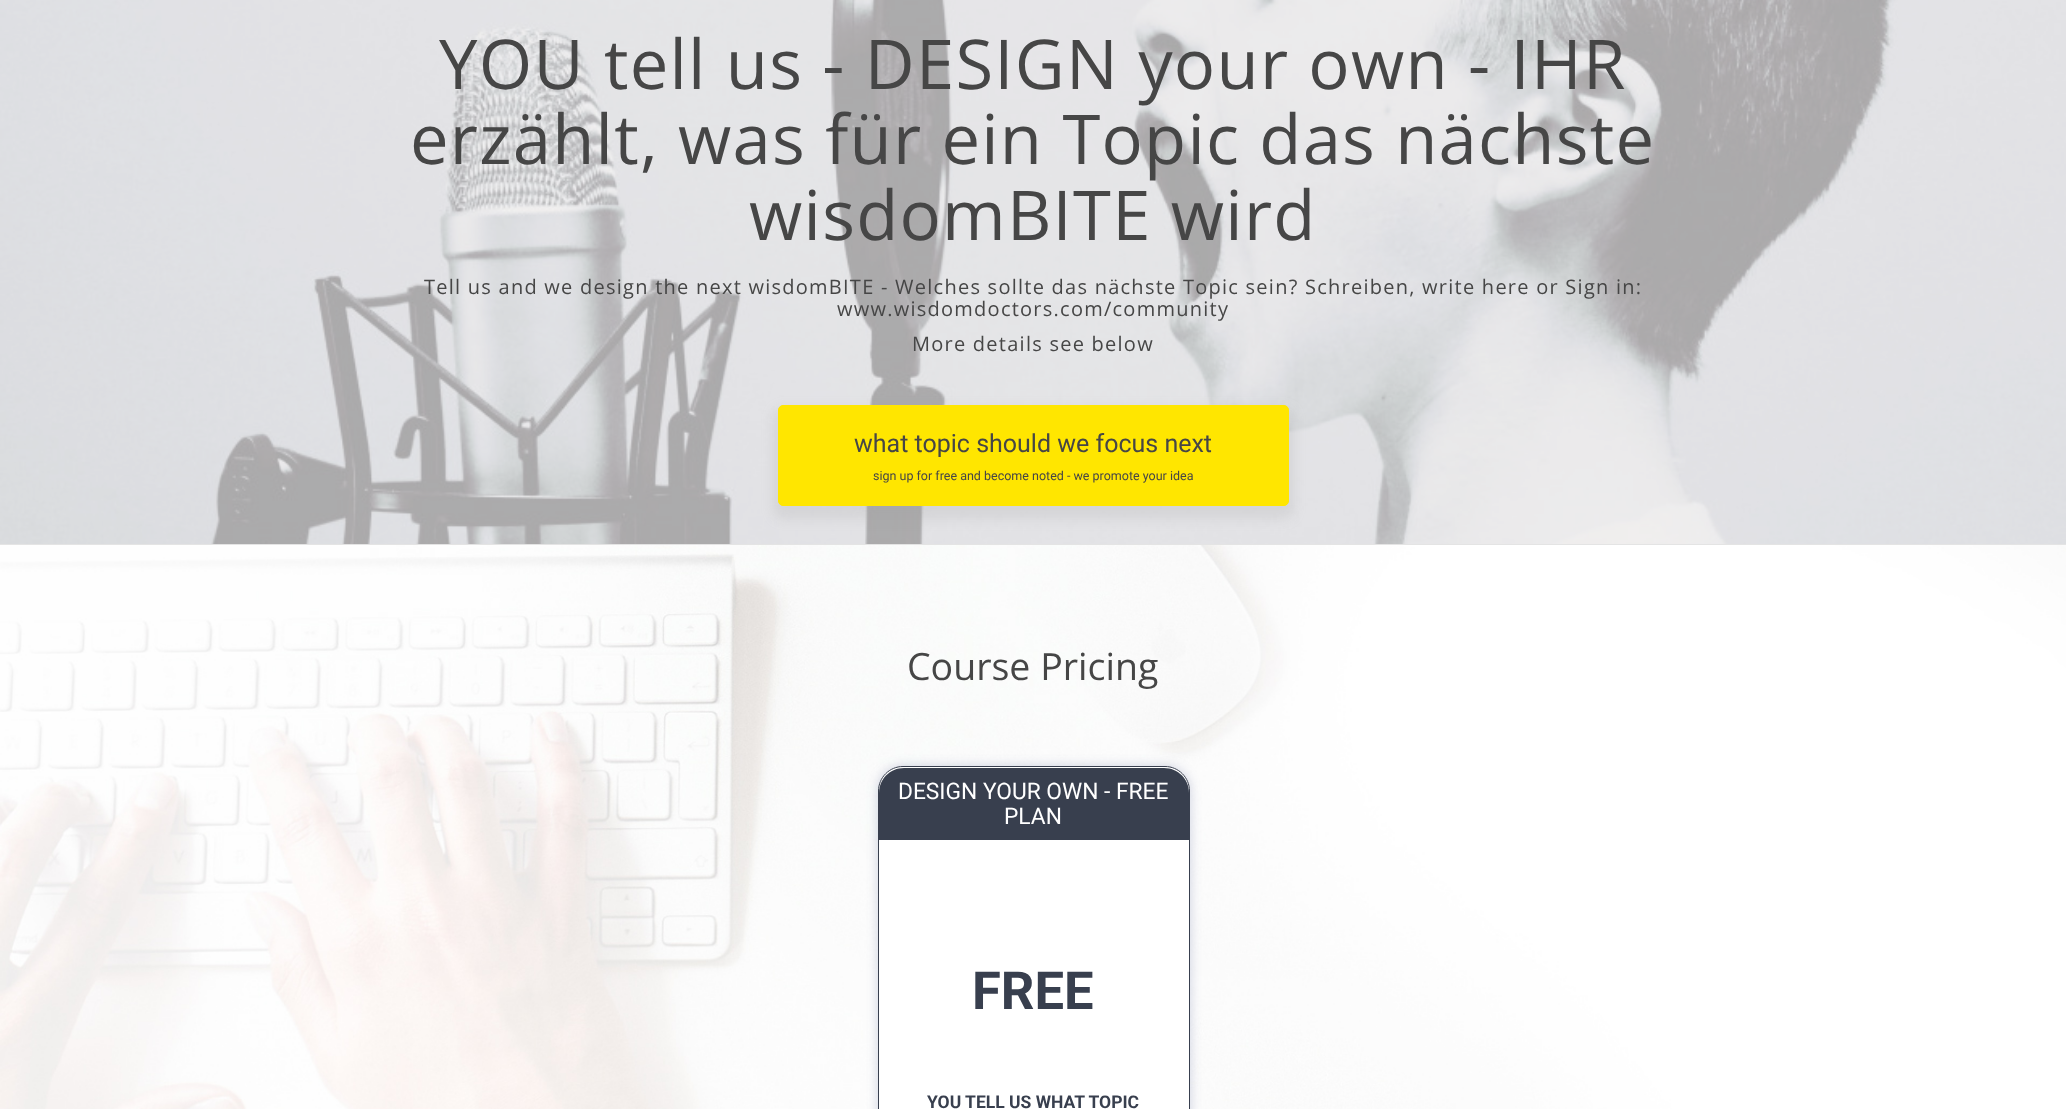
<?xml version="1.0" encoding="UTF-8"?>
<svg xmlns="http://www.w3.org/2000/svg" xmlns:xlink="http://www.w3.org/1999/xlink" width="2066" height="1109">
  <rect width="100%" height="100%" fill="#ffffff" />
  <image x="0" y="0" width="2066" height="544" xlink:href="image1.png" />
  <rect y="544" width="2066" height="1" fill="#e4e4e4" />
  <rect x="773" y="408" width="521" height="111" rx="10" fill="#a0a0a0" fill-opacity="0.2" filter="blur(6px)" />
  <rect x="778.5" y="405.5" width="510" height="100" rx="4.5" fill="#ffe600" stroke="#ffe600" />
  <image x="0" y="545" width="2066" height="564" xlink:href="image2.png" />
  <rect x="878" y="766" width="312" height="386" rx="25" fill="#2e3b7d" fill-opacity="0.23" filter="blur(6px)" />
  <path d="M 903 766.5 h 262 c 13.5 0 24.5 11 24.5 24.5 v 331 c 0 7 -5.5 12.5 -12.5 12.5 h -286 c -7 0 -12.5 -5.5 -12.5 -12.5 v -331 c 0 -13.5 11 -24.5 24.5 -24.5 z" fill="#ffffff" stroke="#383f4e" />
  <path d="M 904 768 h 260 c 14 0 25 11 25 25 v 47 h -310 v -47 c 0 -14 11 -25 25 -25 z" fill="#383f4e" />
  <text x="439" y="89" style="font-family: Open Sans; font-size: 68.75px; letter-spacing: 1.25px; fill: #464646">YOU tell us - DESIGN your own - IHR</text>
  <text x="410" y="164" style="font-family: Open Sans; font-size: 68.75px; letter-spacing: 1.25px; fill: #464646">erzählt, was für ein Topic das nächste</text>
  <text x="749" y="240" style="font-family: Open Sans; font-size: 68.75px; letter-spacing: 1.25px; fill: #464646">wisdomBITE wird</text>
  <text x="424" y="294" style="font-family: Open Sans; font-size: 20px; letter-spacing: 1.25px; fill: #464646">Tell us and we design the next wisdomBITE - Welches sollte das nächste Topic sein? Schreiben, write here or Sign in:</text>
  <text x="837" y="316" style="font-family: Open Sans; font-size: 20px; letter-spacing: 1.25px; fill: #464646">www.wisdomdoctors.com/community</text>
  <text x="912" y="351" style="font-family: Open Sans; font-size: 20px; letter-spacing: 1.25px; fill: #464646">More details see below</text>
  <text x="854" y="452" style="font-family: Roboto; font-size: 25px; fill: #464646">what topic should we focus next</text>
  <text x="873" y="480" style="font-family: Roboto; font-size: 12.5px; fill: #464646">sign up for free and become noted - we promote your idea</text>
  <text x="907" y="680" style="font-family: Open Sans; font-size: 37.5px; fill: #464646">Course Pricing</text>
  <text x="898" y="799" style="font-family: Roboto; font-size: 22.75px; fill: #ffffff">DESIGN YOUR OWN - FREE</text>
  <text x="1004" y="824" style="font-family: Roboto; font-size: 22.75px; fill: #ffffff">PLAN</text>
  <text x="972" y="1009" style="font-family: Roboto; font-size: 52.5px; font-weight: bold; fill: #383f4e">FREE</text>
  <text x="927" y="1108" style="font-family: Roboto; font-size: 17.5px; font-weight: bold; fill: #383f4e">YOU TELL US WHAT TOPIC</text>
</svg>
